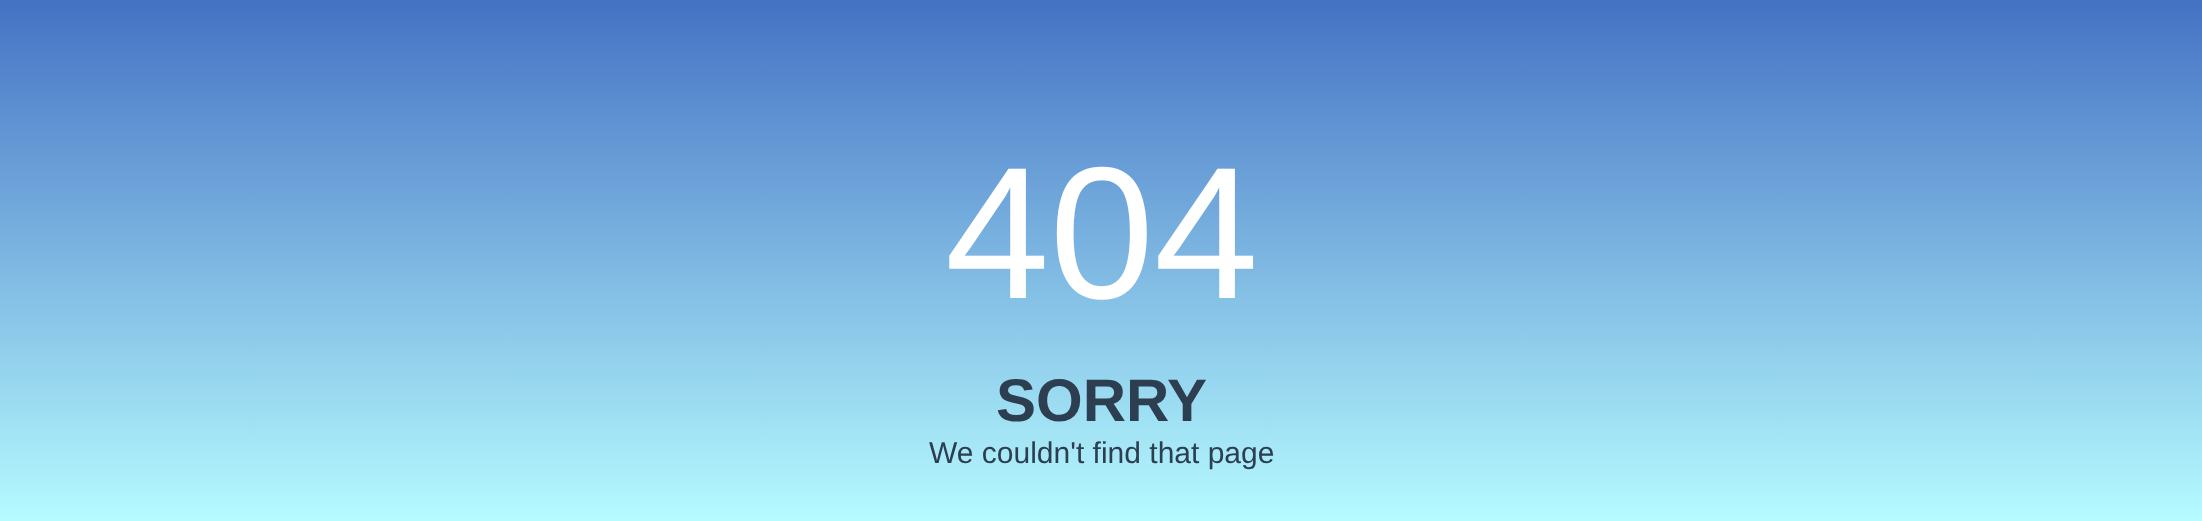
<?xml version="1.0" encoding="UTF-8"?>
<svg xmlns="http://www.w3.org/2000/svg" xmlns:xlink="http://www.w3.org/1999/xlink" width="2202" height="521">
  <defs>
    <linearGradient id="g1" gradientUnits="userSpaceOnUse" x1="1101" y1="0" x2="1101" y2="521"><stop offset="0" stop-color="#4472c4" /><stop offset="1" stop-color="#b6fbff" /></linearGradient>
  </defs>
  <rect width="100%" height="100%" fill="#ffffff" />
  <rect width="2202" height="521" fill="url(#g1)" />
  <text x="945" y="298" style="font-family: Liberation Sans; font-size: 188px; fill: #ffffff">404</text>
  <text x="996" y="421" style="font-family: Liberation Sans; font-size: 60px; font-weight: bold; fill: #2c3e50">SORRY</text>
  <text x="929" y="463" style="font-family: Liberation Sans; font-size: 30px; fill: #2c3e50">We couldn't find that page</text>
</svg>
